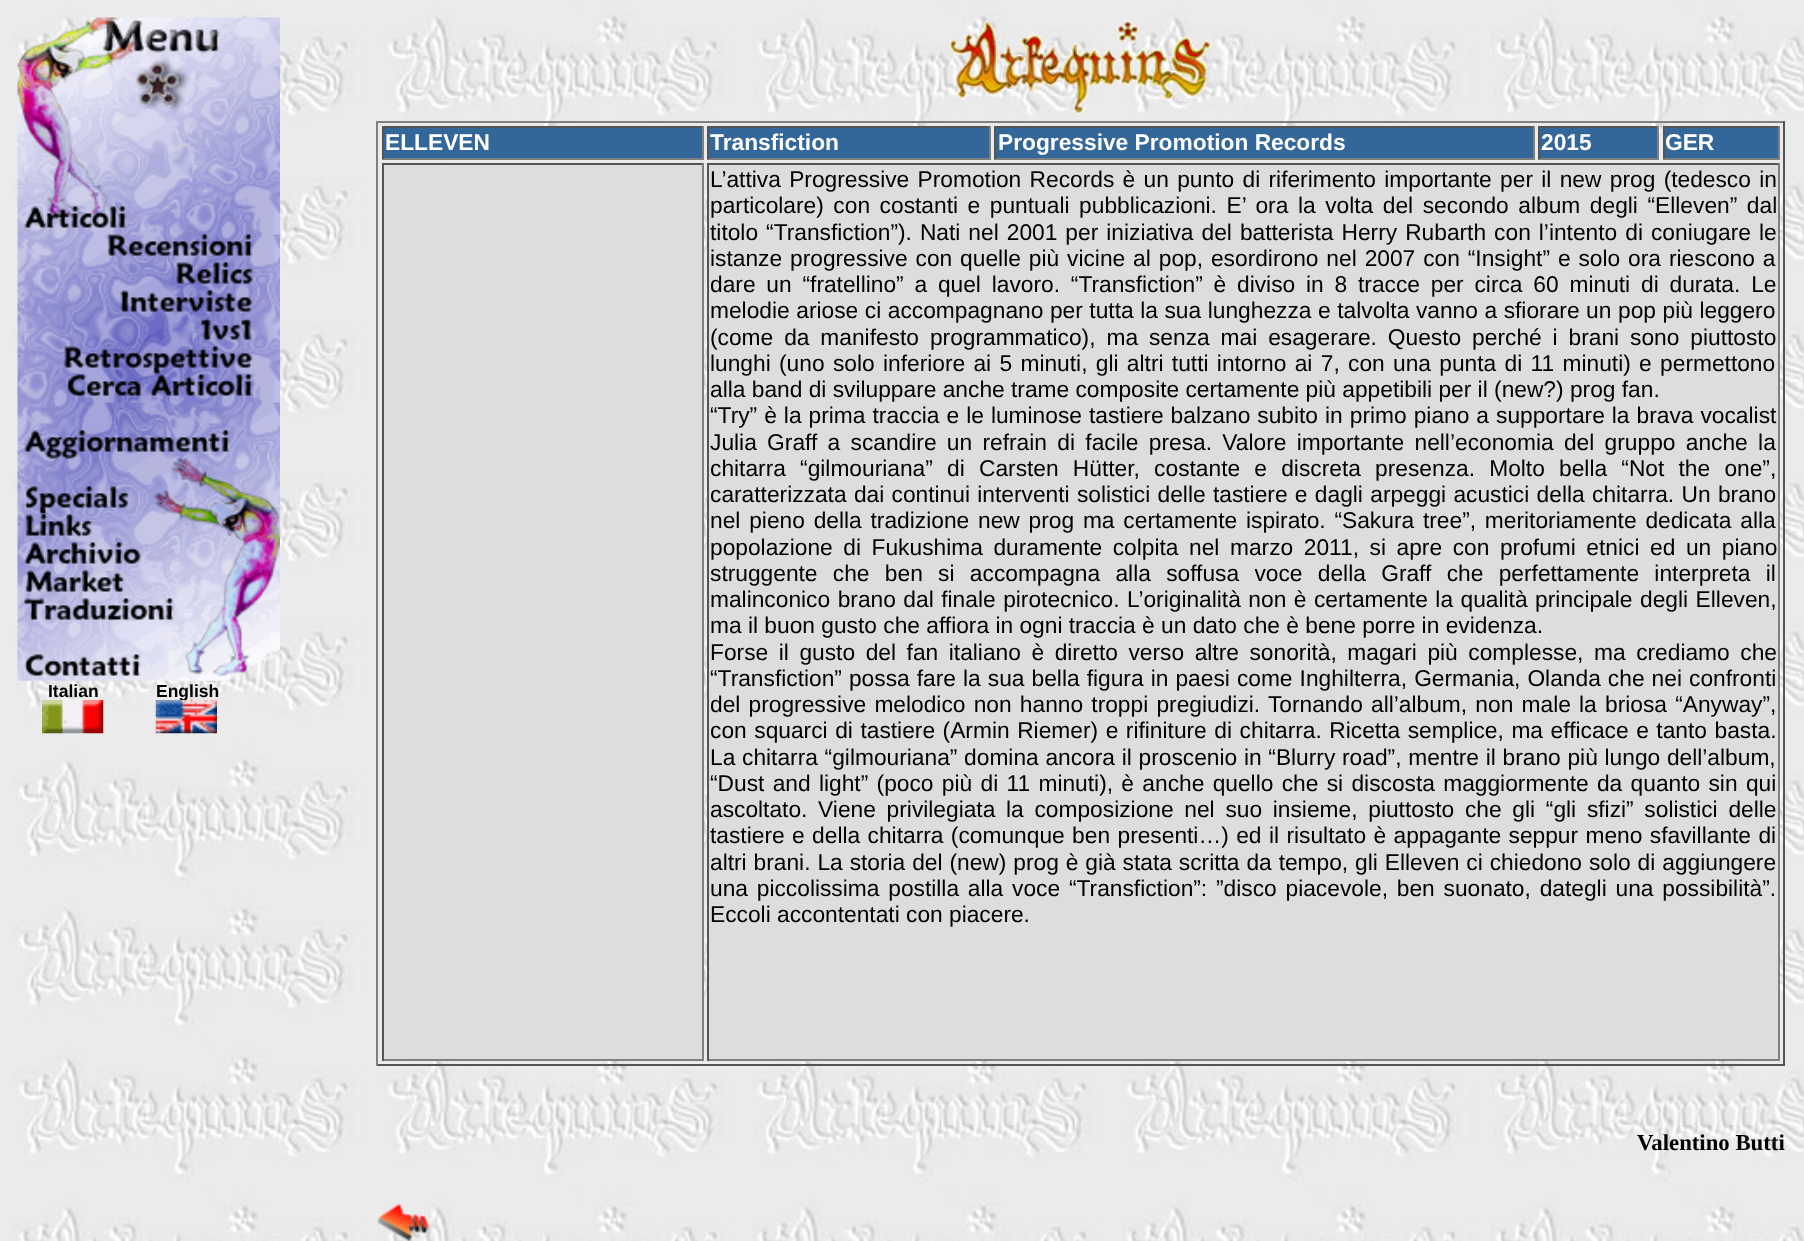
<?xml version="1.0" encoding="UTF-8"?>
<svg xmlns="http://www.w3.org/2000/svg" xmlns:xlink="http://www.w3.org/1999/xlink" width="1804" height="1241">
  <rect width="100%" height="100%" fill="#ffffff" />
  <image x="0" y="0" width="1804" height="1241" xlink:href="image1.png" />
  <image x="17" y="17" width="263" height="664" xlink:href="image2.png" />
  <image x="42" y="700" width="62" height="34" xlink:href="image3.png" />
  <image x="948" y="20" width="263" height="94" xlink:href="image5.png" />
  <rect x="376" y="121" width="1409" height="2" fill="#808080" />
  <rect x="1783" y="121" width="2" height="945" fill="#555555" />
  <rect x="376" y="1064" width="1409" height="2" fill="#555555" />
  <rect x="376" y="121" width="2" height="945" fill="#808080" />
  <rect x="384" y="128" width="318" height="30" fill="#336699" />
  <rect x="382" y="126" width="322" height="2" fill="#555555" />
  <rect x="702" y="126" width="2" height="33" fill="#808080" />
  <rect x="382" y="158" width="322" height="2" fill="#808080" />
  <rect x="382" y="126" width="2" height="33" fill="#555555" />
  <rect x="709" y="128" width="280" height="30" fill="#336699" />
  <rect x="707" y="126" width="284" height="2" fill="#555555" />
  <rect x="989" y="126" width="2" height="33" fill="#808080" />
  <rect x="707" y="158" width="284" height="2" fill="#808080" />
  <rect x="707" y="126" width="2" height="33" fill="#555555" />
  <rect x="996" y="128" width="537" height="30" fill="#336699" />
  <rect x="994" y="126" width="541" height="2" fill="#555555" />
  <rect x="1533" y="126" width="2" height="33" fill="#808080" />
  <rect x="994" y="158" width="541" height="2" fill="#808080" />
  <rect x="994" y="126" width="2" height="33" fill="#555555" />
  <rect x="1540" y="128" width="117" height="30" fill="#336699" />
  <rect x="1538" y="126" width="121" height="2" fill="#555555" />
  <rect x="1657" y="126" width="2" height="33" fill="#808080" />
  <rect x="1538" y="158" width="121" height="2" fill="#808080" />
  <rect x="1538" y="126" width="2" height="33" fill="#555555" />
  <rect x="1665" y="128" width="113" height="30" fill="#336699" />
  <rect x="1663" y="126" width="117" height="2" fill="#555555" />
  <rect x="1778" y="126" width="2" height="33" fill="#808080" />
  <rect x="1663" y="158" width="117" height="2" fill="#808080" />
  <rect x="1663" y="126" width="2" height="33" fill="#555555" />
  <rect x="384" y="165" width="318" height="894" fill="#dddddd" />
  <rect x="382" y="163" width="322" height="2" fill="#555555" />
  <rect x="702" y="163" width="2" height="898" fill="#808080" />
  <rect x="382" y="1059" width="322" height="2" fill="#808080" />
  <rect x="382" y="163" width="2" height="898" fill="#555555" />
  <rect x="709" y="165" width="1069" height="894" fill="#dddddd" />
  <rect x="707" y="163" width="1073" height="2" fill="#555555" />
  <rect x="1778" y="163" width="2" height="898" fill="#808080" />
  <rect x="707" y="1059" width="1073" height="2" fill="#808080" />
  <rect x="707" y="163" width="2" height="898" fill="#555555" />
  <image x="377" y="1203" width="53" height="38" xlink:href="image6.png" />
  <text x="48" y="697" style="font-family: Liberation Sans; font-size: 17.5px; font-weight: bold; fill: #000000">Italian</text>
  <text x="156" y="697" style="font-family: Liberation Sans; font-size: 17.5px; font-weight: bold; fill: #000000">English</text>
  <image x="155" y="700" width="62" height="34" xlink:href="image4.png" />
  <text x="385" y="150" style="font-family: Liberation Sans; font-size: 22.75px; font-weight: bold; fill: #ffffff">ELLEVEN</text>
  <text x="710" y="150" style="font-family: Liberation Sans; font-size: 22.75px; font-weight: bold; fill: #ffffff">Transfiction</text>
  <text x="998" y="150" style="font-family: Liberation Sans; font-size: 22.75px; font-weight: bold; fill: #ffffff">Progressive Promotion Records</text>
  <text x="1541" y="150" style="font-family: Liberation Sans; font-size: 22.75px; font-weight: bold; fill: #ffffff">2015</text>
  <text x="1665" y="150" style="font-family: Liberation Sans; font-size: 22.75px; font-weight: bold; fill: #ffffff">GER</text>
  <text x="710" y="187" word-spacing="2" style="font-family: Liberation Sans; font-size: 22.75px; fill: #000000">L’attiva Progressive Promotion Records è un punto di riferimento importante per il new prog (tedesco in</text>
  <text x="710" y="213" word-spacing="3.25" style="font-family: Liberation Sans; font-size: 22.75px; fill: #000000">particolare) con costanti e puntuali pubblicazioni. E’ ora la volta del secondo album degli “Elleven” dal</text>
  <text x="710" y="240" word-spacing="1.7" style="font-family: Liberation Sans; font-size: 22.75px; fill: #000000">titolo “Transfiction”). Nati nel 2001 per iniziativa del batterista Herry Rubarth con l’intento di coniugare le</text>
  <text x="710" y="266" word-spacing="1.6" style="font-family: Liberation Sans; font-size: 22.75px; fill: #000000">istanze progressive con quelle più vicine al pop, esordirono nel 2007 con “Insight” e solo ora riescono a</text>
  <text x="710" y="292" word-spacing="4.5" style="font-family: Liberation Sans; font-size: 22.75px; fill: #000000">dare un “fratellino” a quel lavoro. “Transfiction” è diviso in 8 tracce per circa 60 minuti di durata. Le</text>
  <text x="710" y="318" word-spacing="0.25" style="font-family: Liberation Sans; font-size: 22.75px; fill: #000000">melodie ariose ci accompagnano per tutta la sua lunghezza e talvolta vanno a sfiorare un pop più leggero</text>
  <text x="710" y="345" word-spacing="4.6" style="font-family: Liberation Sans; font-size: 22.75px; fill: #000000">(come da manifesto programmatico), ma senza mai esagerare. Questo perché i brani sono piuttosto</text>
  <text x="710" y="371" word-spacing="2" style="font-family: Liberation Sans; font-size: 22.75px; fill: #000000">lunghi (uno solo inferiore ai 5 minuti, gli altri tutti intorno ai 7, con una punta di 11 minuti) e permettono</text>
  <text x="710" y="397" style="font-family: Liberation Sans; font-size: 22.75px; fill: #000000">alla band di sviluppare anche trame composite certamente più appetibili per il (new?) prog fan.</text>
  <text x="710" y="423" word-spacing="0.7" style="font-family: Liberation Sans; font-size: 22.75px; fill: #000000">“Try” è la prima traccia e le luminose tastiere balzano subito in primo piano a supportare la brava vocalist</text>
  <text x="710" y="450" word-spacing="4" style="font-family: Liberation Sans; font-size: 22.75px; fill: #000000">Julia Graff a scandire un refrain di facile presa. Valore importante nell’economia del gruppo anche la</text>
  <text x="710" y="476" word-spacing="7.9" style="font-family: Liberation Sans; font-size: 22.75px; fill: #000000">chitarra “gilmouriana” di Carsten Hütter, costante e discreta presenza. Molto bella “Not the one”,</text>
  <text x="710" y="502" word-spacing="1" style="font-family: Liberation Sans; font-size: 22.75px; fill: #000000">caratterizzata dai continui interventi solistici delle tastiere e dagli arpeggi acustici della chitarra. Un brano</text>
  <text x="710" y="528" word-spacing="2.5" style="font-family: Liberation Sans; font-size: 22.75px; fill: #000000">nel pieno della tradizione new prog ma certamente ispirato. “Sakura tree”, meritoriamente dedicata alla</text>
  <text x="710" y="555" word-spacing="4.25" style="font-family: Liberation Sans; font-size: 22.75px; fill: #000000">popolazione di Fukushima duramente colpita nel marzo 2011, si apre con profumi etnici ed un piano</text>
  <text x="710" y="581" word-spacing="9" style="font-family: Liberation Sans; font-size: 22.75px; fill: #000000">struggente che ben si accompagna alla soffusa voce della Graff che perfettamente interpreta il</text>
  <text x="710" y="607" word-spacing="1.2" style="font-family: Liberation Sans; font-size: 22.75px; fill: #000000">malinconico brano dal finale pirotecnico. L’originalità non è certamente la qualità principale degli Elleven,</text>
  <text x="710" y="633" style="font-family: Liberation Sans; font-size: 22.75px; fill: #000000">ma il buon gusto che affiora in ogni traccia è un dato che è bene porre in evidenza.</text>
  <text x="710" y="660" word-spacing="4.25" style="font-family: Liberation Sans; font-size: 22.75px; fill: #000000">Forse il gusto del fan italiano è diretto verso altre sonorità, magari più complesse, ma crediamo che</text>
  <text x="710" y="686" word-spacing="0.75" style="font-family: Liberation Sans; font-size: 22.75px; fill: #000000">“Transfiction” possa fare la sua bella figura in paesi come Inghilterra, Germania, Olanda che nei confronti</text>
  <text x="710" y="712" word-spacing="1.9" style="font-family: Liberation Sans; font-size: 22.75px; fill: #000000">del progressive melodico non hanno troppi pregiudizi. Tornando all’album, non male la briosa “Anyway”,</text>
  <text x="710" y="738" word-spacing="1.25" style="font-family: Liberation Sans; font-size: 22.75px; fill: #000000">con squarci di tastiere (Armin Riemer) e rifiniture di chitarra. Ricetta semplice, ma efficace e tanto basta.</text>
  <text x="710" y="765" word-spacing="0.4" style="font-family: Liberation Sans; font-size: 22.75px; fill: #000000">La chitarra “gilmouriana” domina ancora il proscenio in “Blurry road”, mentre il brano più lungo dell’album,</text>
  <text x="710" y="791" word-spacing="2" style="font-family: Liberation Sans; font-size: 22.75px; fill: #000000">“Dust and light” (poco più di 11 minuti), è anche quello che si discosta maggiormente da quanto sin qui</text>
  <text x="710" y="817" word-spacing="4.4" style="font-family: Liberation Sans; font-size: 22.75px; fill: #000000">ascoltato. Viene privilegiata la composizione nel suo insieme, piuttosto che gli “gli sfizi” solistici delle</text>
  <text x="710" y="843" word-spacing="1.1" style="font-family: Liberation Sans; font-size: 22.75px; fill: #000000">tastiere e della chitarra (comunque ben presenti…) ed il risultato è appagante seppur meno sfavillante di</text>
  <text x="710" y="870" word-spacing="0.6" style="font-family: Liberation Sans; font-size: 22.75px; fill: #000000">altri brani. La storia del (new) prog è già stata scritta da tempo, gli Elleven ci chiedono solo di aggiungere</text>
  <text x="710" y="896" word-spacing="2.5" style="font-family: Liberation Sans; font-size: 22.75px; fill: #000000">una piccolissima postilla alla voce “Transfiction”: ”disco piacevole, ben suonato, dategli una possibilità”.</text>
  <text x="710" y="922" style="font-family: Liberation Sans; font-size: 22.75px; fill: #000000">Eccoli accontentati con piacere.</text>
  <text x="1637" y="1150" style="font-family: Liberation Serif; font-size: 22.75px; font-weight: bold; fill: #000000">Valentino Butti</text>
</svg>
